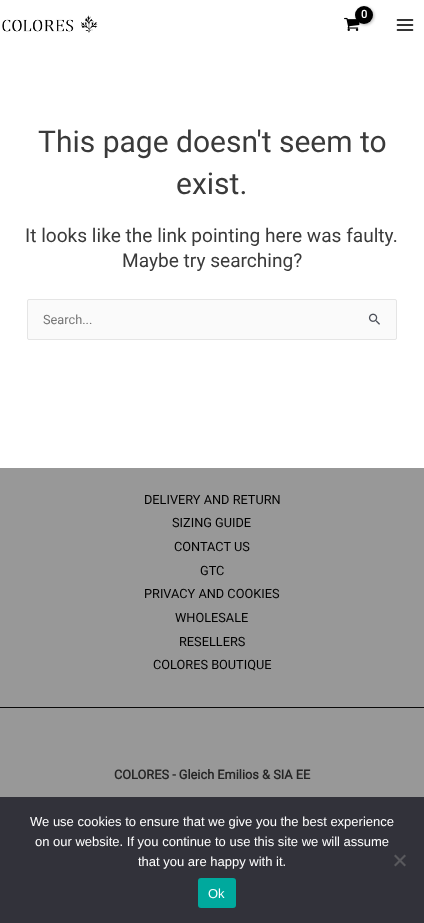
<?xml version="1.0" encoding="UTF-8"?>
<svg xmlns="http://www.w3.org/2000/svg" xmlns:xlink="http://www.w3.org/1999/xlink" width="424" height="923">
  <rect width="100%" height="100%" fill="#ffffff" />
  <image x="2" y="15" width="96" height="18" xlink:href="image1.png" />
  <image x="344" y="17" width="16" height="14" xlink:href="image2.png" />
  <rect x="356" y="7" width="18" height="18" rx="9" fill="#000000" fill-opacity="0.3" filter="blur(1.5px)" />
  <circle cx="364" cy="15" r="9" fill="#000000" />
  <image x="396" y="19" width="18" height="12" xlink:href="image3.png" />
  <rect x="27.5" y="299.5" width="369" height="40" rx="1.5" fill="#fafafa" stroke="#e5e5e5" />
  <image x="368" y="313" width="12" height="12" xlink:href="image4.png" />
  <rect y="468" width="424" height="239" fill="#989898" />
  <rect y="708" width="424" height="89" fill="#989898" />
  <rect y="707" width="424" height="1" fill="#090909" />
  <rect y="797" width="424" height="126" fill="#32323a" />
  <path d="M 404.5 854.5 l 1.5 1.5 l -10.5 10.5 l -1.5 -1.5 z" fill="#59595d" />
  <path d="M 394 856 l 1.5 -1.5 l 10.5 10.5 l -1.5 1.5 z" fill="#59595d" />
  <rect x="198" y="878" width="38" height="30" rx="3" fill="#00a99d" />
  <text x="361" y="18" style="font-family: Roboto; font-size: 11px; font-weight: bold; fill: #ffffff">0</text>
  <text x="38" y="152" style="font-family: Roboto; font-size: 30px; fill: #3a3a3a">This page doesn't seem to</text>
  <text x="176" y="194" style="font-family: Roboto; font-size: 30px; fill: #3a3a3a">exist.</text>
  <text x="25" y="242" style="font-family: Roboto; font-size: 19.1px; fill: #3a3a3a">It looks like the link pointing here was faulty.</text>
  <text x="122" y="267" style="font-family: Roboto; font-size: 19.1px; fill: #3a3a3a">Maybe try searching?</text>
  <text x="43" y="324" style="font-family: Roboto; font-size: 12.75px; fill: #757575">Search...</text>
  <text x="144" y="504" style="font-family: Roboto; font-size: 12.75px; fill: #000000">DELIVERY AND RETURN</text>
  <text x="172" y="527" style="font-family: Roboto; font-size: 12.75px; fill: #000000">SIZING GUIDE</text>
  <text x="174" y="551" style="font-family: Roboto; font-size: 12.75px; fill: #000000">CONTACT US</text>
  <text x="200" y="575" style="font-family: Roboto; font-size: 12.75px; fill: #000000">GTC</text>
  <text x="144" y="598" style="font-family: Roboto; font-size: 12.75px; fill: #000000">PRIVACY AND COOKIES</text>
  <text x="175" y="622" style="font-family: Roboto; font-size: 12.75px; fill: #000000">WHOLESALE</text>
  <text x="179" y="646" style="font-family: Roboto; font-size: 12.75px; fill: #000000">RESELLERS</text>
  <text x="153" y="669" style="font-family: Roboto; font-size: 12.75px; fill: #000000">COLORES BOUTIQUE</text>
  <text x="114" y="779" style="font-family: Roboto; font-size: 12.75px; font-weight: bold; fill: #252525">COLORES - Gleich Emilios &amp; SIA EE</text>
  <text x="30" y="826" style="font-family: Liberation Sans; font-size: 13px; fill: #ffffff">We use cookies to ensure that we give you the best experience</text>
  <text x="35" y="846" style="font-family: Liberation Sans; font-size: 13px; fill: #ffffff">on our website. If you continue to use this site we will assume</text>
  <text x="138" y="866" style="font-family: Liberation Sans; font-size: 13px; fill: #ffffff">that you are happy with it.</text>
  <text x="208" y="898" style="font-family: Liberation Sans; font-size: 13px; fill: #ffffff">Ok</text>
</svg>
